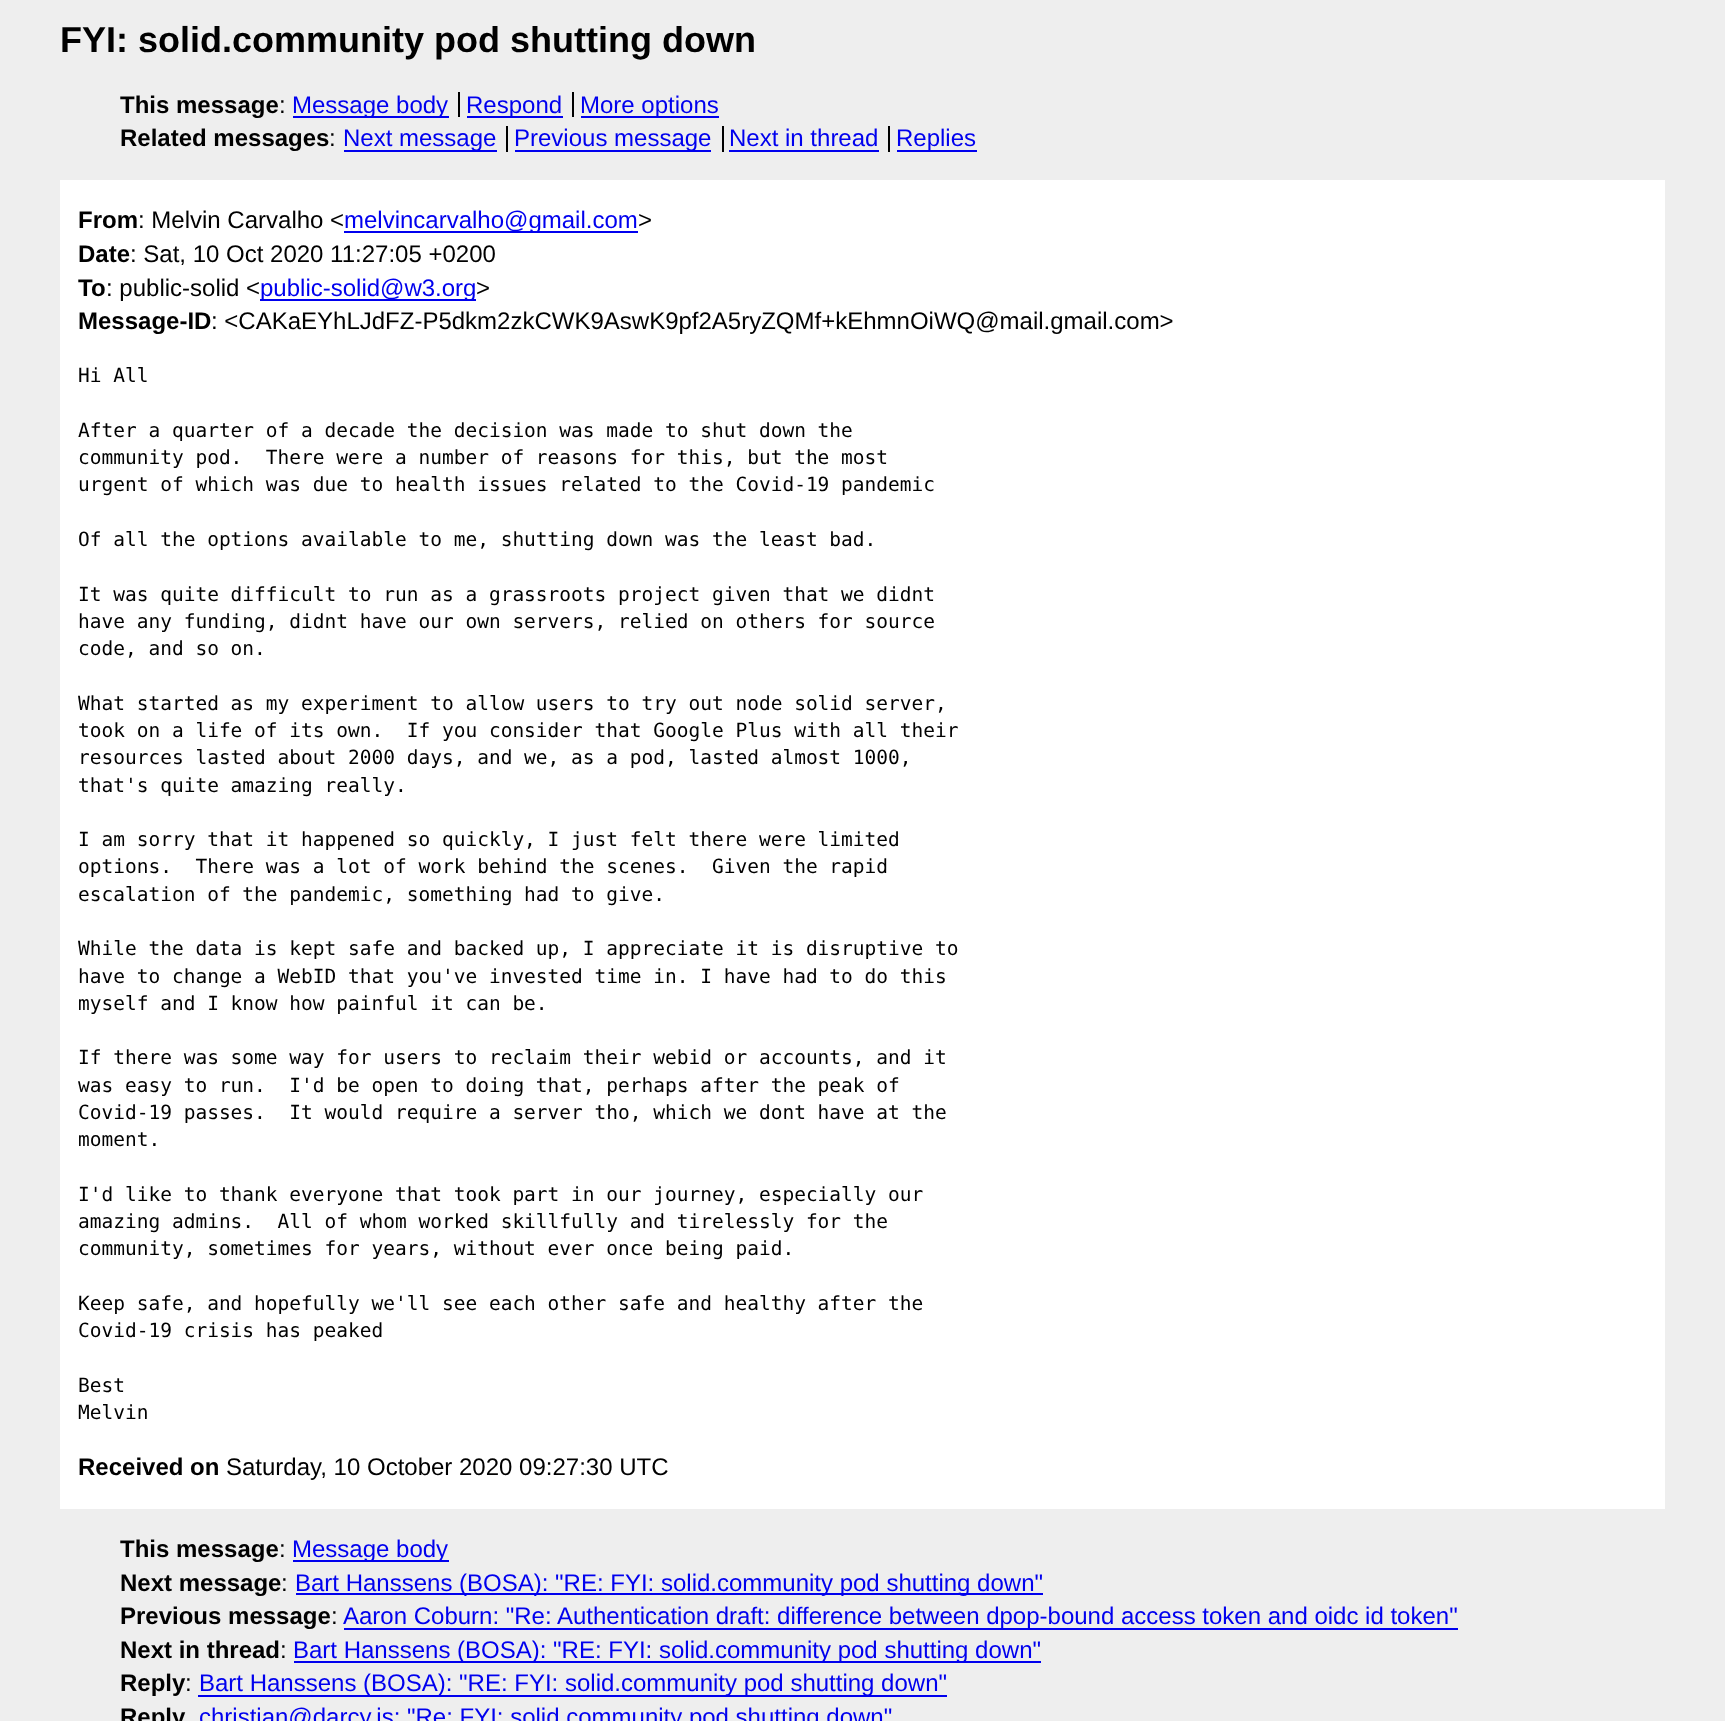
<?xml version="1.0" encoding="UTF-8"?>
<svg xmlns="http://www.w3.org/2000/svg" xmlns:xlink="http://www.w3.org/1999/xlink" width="1725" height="1721">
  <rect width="100%" height="100%" fill="#eeeeee" />
  <rect x="293" y="116" width="156" height="2" fill="#0000ee" />
  <rect x="458" y="92" width="2" height="25" fill="#000000" />
  <rect x="467" y="116" width="96" height="2" fill="#0000ee" />
  <rect x="572" y="92" width="2" height="25" fill="#000000" />
  <rect x="581" y="116" width="138" height="2" fill="#0000ee" />
  <rect x="344" y="150" width="153" height="2" fill="#0000ee" />
  <rect x="506" y="126" width="2" height="26" fill="#000000" />
  <rect x="515" y="150" width="196" height="2" fill="#0000ee" />
  <rect x="722" y="126" width="2" height="26" fill="#000000" />
  <rect x="729" y="150" width="150" height="2" fill="#0000ee" />
  <rect x="888" y="126" width="2" height="26" fill="#000000" />
  <rect x="897" y="150" width="80" height="2" fill="#0000ee" />
  <rect x="60" y="180" width="1605" height="1329" fill="#ffffff" />
  <rect x="344" y="231" width="294" height="2" fill="#0000ee" />
  <rect x="260" y="299" width="216" height="2" fill="#0000ee" />
  <rect x="293" y="1560" width="156" height="2" fill="#0000ee" />
  <rect x="296" y="1593" width="747" height="2" fill="#0000ee" />
  <rect x="344" y="1628" width="1114" height="2" fill="#0000ee" />
  <rect x="294" y="1661" width="747" height="2" fill="#0000ee" />
  <rect x="198" y="1695" width="749" height="2" fill="#0000ee" />
  <text x="60" y="52" style="font-family: Liberation Sans; font-size: 36px; font-weight: bold; fill: #000000">FYI: solid.community pod shutting down</text>
  <text x="120" y="113" style="font-family: Liberation Sans; font-size: 24px; font-weight: bold; fill: #000000">This message</text>
  <text x="279" y="113" style="font-family: Liberation Sans; font-size: 24px; fill: #000000">:</text>
  <text x="292" y="113" style="font-family: Liberation Sans; font-size: 24px; fill: #0000ee">Message body</text>
  <text x="466" y="113" style="font-family: Liberation Sans; font-size: 24px; fill: #0000ee">Respond</text>
  <text x="580" y="113" style="font-family: Liberation Sans; font-size: 24px; fill: #0000ee">More options</text>
  <text x="120" y="146" style="font-family: Liberation Sans; font-size: 24px; font-weight: bold; fill: #000000">Related messages</text>
  <text x="329" y="146" style="font-family: Liberation Sans; font-size: 24px; fill: #000000">:</text>
  <text x="343" y="146" style="font-family: Liberation Sans; font-size: 24px; fill: #0000ee">Next message</text>
  <text x="514" y="146" style="font-family: Liberation Sans; font-size: 24px; fill: #0000ee">Previous message</text>
  <text x="729" y="146" style="font-family: Liberation Sans; font-size: 24px; fill: #0000ee">Next in thread</text>
  <text x="896" y="146" style="font-family: Liberation Sans; font-size: 24px; fill: #0000ee">Replies</text>
  <text x="78" y="228" style="font-family: Liberation Sans; font-size: 24px; font-weight: bold; fill: #000000">From</text>
  <text x="138" y="228" style="font-family: Liberation Sans; font-size: 24px; fill: #000000">: Melvin Carvalho &lt;</text>
  <text x="344" y="228" style="font-family: Liberation Sans; font-size: 24px; fill: #0000ee">melvincarvalho@gmail.com</text>
  <text x="638" y="228" style="font-family: Liberation Sans; font-size: 24px; fill: #000000">&gt;</text>
  <text x="78" y="262" style="font-family: Liberation Sans; font-size: 24px; font-weight: bold; fill: #000000">Date</text>
  <text x="130" y="262" style="font-family: Liberation Sans; font-size: 24px; fill: #000000">: Sat, 10 Oct 2020 11:27:05 +0200</text>
  <text x="78" y="296" style="font-family: Liberation Sans; font-size: 24px; font-weight: bold; fill: #000000">To</text>
  <text x="106" y="296" style="font-family: Liberation Sans; font-size: 24px; fill: #000000">: public-solid &lt;</text>
  <text x="260" y="296" style="font-family: Liberation Sans; font-size: 24px; fill: #0000ee">public-solid@w3.org</text>
  <text x="476" y="296" style="font-family: Liberation Sans; font-size: 24px; fill: #000000">&gt;</text>
  <text x="78" y="329" style="font-family: Liberation Sans; font-size: 24px; font-weight: bold; fill: #000000">Message-ID</text>
  <text x="211" y="329" style="font-family: Liberation Sans; font-size: 24px; fill: #000000">: &lt;CAKaEYhLJdFZ-P5dkm2zkCWK9AswK9pf2A5ryZQMf+kEhmnOiWQ@mail.gmail.com&gt;</text>
  <text x="78" y="382" style="font-family: DejaVu Sans Mono; font-size: 19.5px; fill: #000000">Hi All</text>
  <text x="78" y="437" style="font-family: DejaVu Sans Mono; font-size: 19.5px; fill: #000000">After a quarter of a decade the decision was made to shut down the</text>
  <text x="78" y="464" style="font-family: DejaVu Sans Mono; font-size: 19.5px; fill: #000000" xml:space="preserve">community pod.  There were a number of reasons for this, but the most</text>
  <text x="78" y="491" style="font-family: DejaVu Sans Mono; font-size: 19.5px; fill: #000000">urgent of which was due to health issues related to the Covid-19 pandemic</text>
  <text x="78" y="546" style="font-family: DejaVu Sans Mono; font-size: 19.5px; fill: #000000">Of all the options available to me, shutting down was the least bad.</text>
  <text x="78" y="601" style="font-family: DejaVu Sans Mono; font-size: 19.5px; fill: #000000">It was quite difficult to run as a grassroots project given that we didnt</text>
  <text x="78" y="628" style="font-family: DejaVu Sans Mono; font-size: 19.5px; fill: #000000">have any funding, didnt have our own servers, relied on others for source</text>
  <text x="78" y="655" style="font-family: DejaVu Sans Mono; font-size: 19.5px; fill: #000000">code, and so on.</text>
  <text x="78" y="710" style="font-family: DejaVu Sans Mono; font-size: 19.5px; fill: #000000">What started as my experiment to allow users to try out node solid server,</text>
  <text x="78" y="737" style="font-family: DejaVu Sans Mono; font-size: 19.5px; fill: #000000" xml:space="preserve">took on a life of its own.  If you consider that Google Plus with all their</text>
  <text x="78" y="764" style="font-family: DejaVu Sans Mono; font-size: 19.5px; fill: #000000">resources lasted about 2000 days, and we, as a pod, lasted almost 1000,</text>
  <text x="78" y="792" style="font-family: DejaVu Sans Mono; font-size: 19.5px; fill: #000000">that's quite amazing really.</text>
  <text x="78" y="846" style="font-family: DejaVu Sans Mono; font-size: 19.5px; fill: #000000">I am sorry that it happened so quickly, I just felt there were limited</text>
  <text x="78" y="873" style="font-family: DejaVu Sans Mono; font-size: 19.5px; fill: #000000" xml:space="preserve">options.  There was a lot of work behind the scenes.  Given the rapid</text>
  <text x="78" y="901" style="font-family: DejaVu Sans Mono; font-size: 19.5px; fill: #000000">escalation of the pandemic, something had to give.</text>
  <text x="78" y="955" style="font-family: DejaVu Sans Mono; font-size: 19.5px; fill: #000000">While the data is kept safe and backed up, I appreciate it is disruptive to</text>
  <text x="78" y="983" style="font-family: DejaVu Sans Mono; font-size: 19.5px; fill: #000000">have to change a WebID that you've invested time in. I have had to do this</text>
  <text x="78" y="1010" style="font-family: DejaVu Sans Mono; font-size: 19.5px; fill: #000000">myself and I know how painful it can be.</text>
  <text x="78" y="1064" style="font-family: DejaVu Sans Mono; font-size: 19.5px; fill: #000000">If there was some way for users to reclaim their webid or accounts, and it</text>
  <text x="78" y="1092" style="font-family: DejaVu Sans Mono; font-size: 19.5px; fill: #000000" xml:space="preserve">was easy to run.  I'd be open to doing that, perhaps after the peak of</text>
  <text x="78" y="1119" style="font-family: DejaVu Sans Mono; font-size: 19.5px; fill: #000000" xml:space="preserve">Covid-19 passes.  It would require a server tho, which we dont have at the</text>
  <text x="78" y="1146" style="font-family: DejaVu Sans Mono; font-size: 19.5px; fill: #000000">moment.</text>
  <text x="78" y="1201" style="font-family: DejaVu Sans Mono; font-size: 19.5px; fill: #000000">I'd like to thank everyone that took part in our journey, especially our</text>
  <text x="78" y="1228" style="font-family: DejaVu Sans Mono; font-size: 19.5px; fill: #000000" xml:space="preserve">amazing admins.  All of whom worked skillfully and tirelessly for the</text>
  <text x="78" y="1255" style="font-family: DejaVu Sans Mono; font-size: 19.5px; fill: #000000">community, sometimes for years, without ever once being paid.</text>
  <text x="78" y="1310" style="font-family: DejaVu Sans Mono; font-size: 19.5px; fill: #000000">Keep safe, and hopefully we'll see each other safe and healthy after the</text>
  <text x="78" y="1337" style="font-family: DejaVu Sans Mono; font-size: 19.5px; fill: #000000">Covid-19 crisis has peaked</text>
  <text x="78" y="1392" style="font-family: DejaVu Sans Mono; font-size: 19.5px; fill: #000000">Best</text>
  <text x="78" y="1419" style="font-family: DejaVu Sans Mono; font-size: 19.5px; fill: #000000">Melvin</text>
  <text x="78" y="1475" style="font-family: Liberation Sans; font-size: 24px; font-weight: bold; fill: #000000">Received on</text>
  <text x="226" y="1475" style="font-family: Liberation Sans; font-size: 24px; fill: #000000">Saturday, 10 October 2020 09:27:30 UTC</text>
  <text x="120" y="1557" style="font-family: Liberation Sans; font-size: 24px; font-weight: bold; fill: #000000">This message</text>
  <text x="279" y="1557" style="font-family: Liberation Sans; font-size: 24px; fill: #000000">:</text>
  <text x="292" y="1557" style="font-family: Liberation Sans; font-size: 24px; fill: #0000ee">Message body</text>
  <text x="120" y="1591" style="font-family: Liberation Sans; font-size: 24px; font-weight: bold; fill: #000000">Next message</text>
  <text x="281" y="1591" style="font-family: Liberation Sans; font-size: 24px; fill: #000000">:</text>
  <text x="295" y="1591" style="font-family: Liberation Sans; font-size: 24px; fill: #0000ee">Bart Hanssens (BOSA): "RE: FYI: solid.community pod shutting down"</text>
  <text x="120" y="1624" style="font-family: Liberation Sans; font-size: 24px; font-weight: bold; fill: #000000">Previous message</text>
  <text x="331" y="1624" style="font-family: Liberation Sans; font-size: 24px; fill: #000000">:</text>
  <text x="343" y="1624" style="font-family: Liberation Sans; font-size: 24px; fill: #0000ee">Aaron Coburn: "Re: Authentication draft: difference between dpop-bound access token and oidc id token"</text>
  <text x="120" y="1658" style="font-family: Liberation Sans; font-size: 24px; font-weight: bold; fill: #000000">Next in thread</text>
  <text x="280" y="1658" style="font-family: Liberation Sans; font-size: 24px; fill: #000000">:</text>
  <text x="293" y="1658" style="font-family: Liberation Sans; font-size: 24px; fill: #0000ee">Bart Hanssens (BOSA): "RE: FYI: solid.community pod shutting down"</text>
  <text x="120" y="1691" style="font-family: Liberation Sans; font-size: 24px; font-weight: bold; fill: #000000">Reply</text>
  <text x="185" y="1691" style="font-family: Liberation Sans; font-size: 24px; fill: #000000">:</text>
  <text x="199" y="1691" style="font-family: Liberation Sans; font-size: 24px; fill: #0000ee">Bart Hanssens (BOSA): "RE: FYI: solid.community pod shutting down"</text>
  <text x="120" y="1725" style="font-family: Liberation Sans; font-size: 24px; font-weight: bold; fill: #000000">Reply</text>
  <text x="199" y="1725" style="font-family: Liberation Sans; font-size: 24px; fill: #0000ee">christian@darcy.is: "Re: FYI: solid.community pod shutting down"</text>
</svg>
